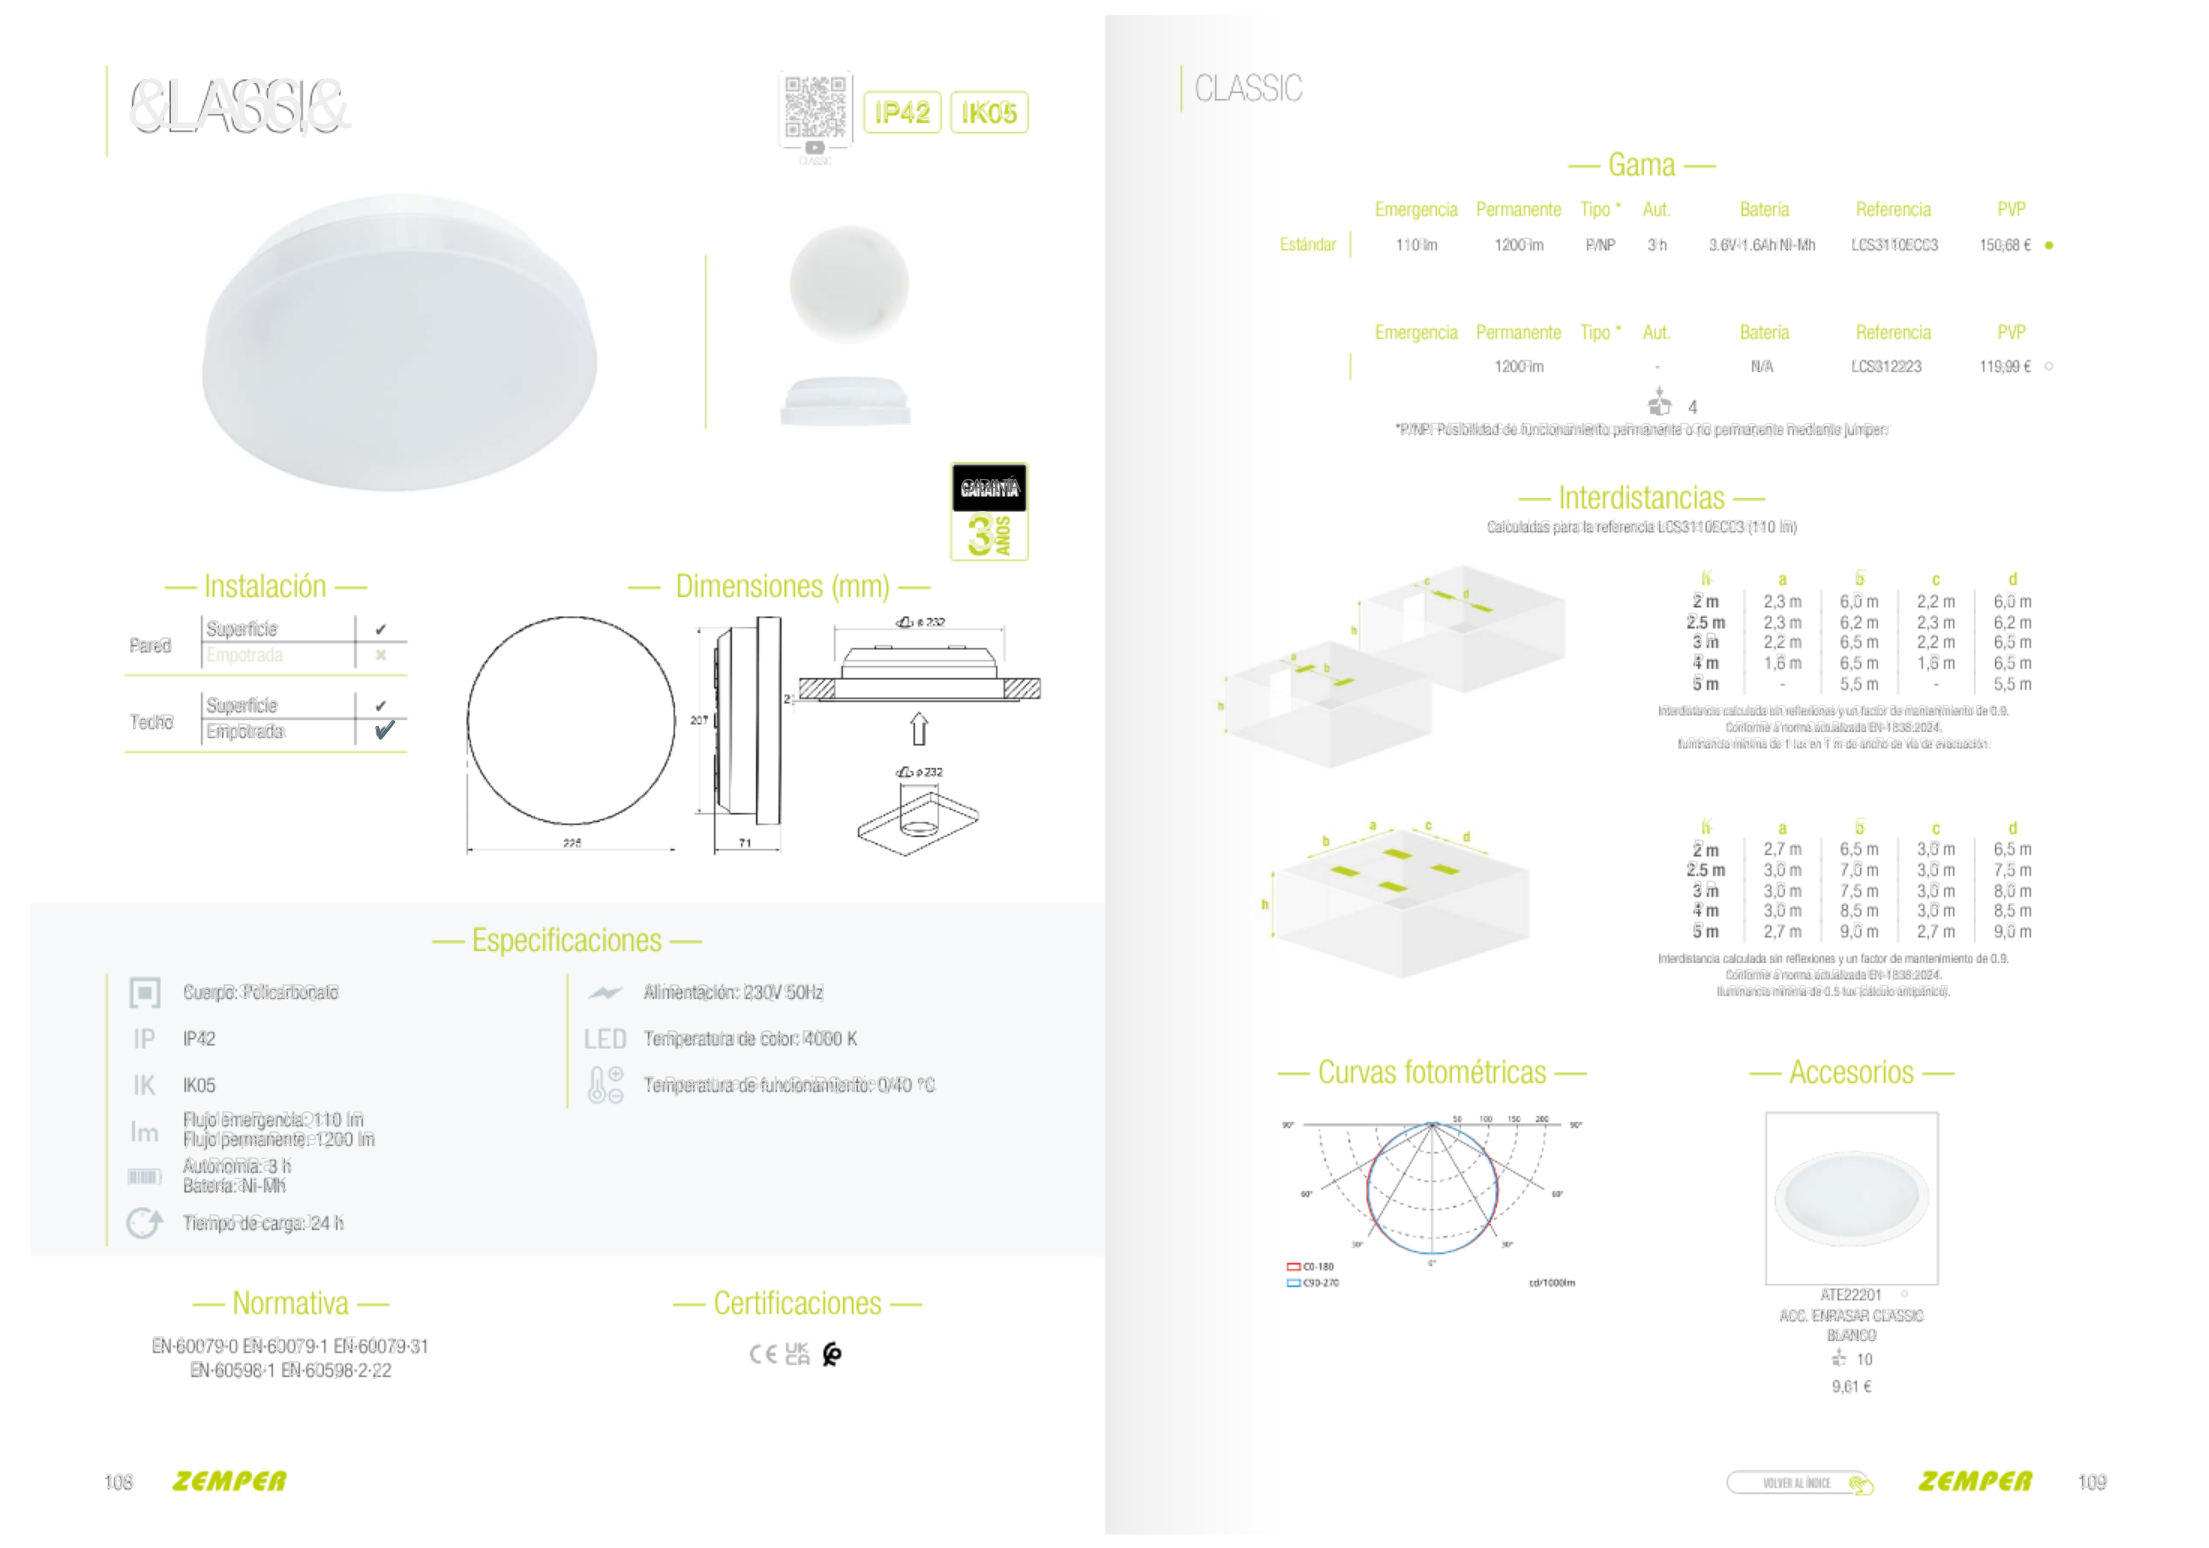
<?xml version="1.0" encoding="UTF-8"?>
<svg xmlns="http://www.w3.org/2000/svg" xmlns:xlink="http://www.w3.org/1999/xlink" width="2209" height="1548">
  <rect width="100%" height="100%" fill="#ffffff" />
  <image x="30" y="15" width="2077" height="1520" xlink:href="image1.png" />
  <text x="127" y="128" style="font-family: Liberation Sans; font-size: 72px; letter-spacing: -9.75px; fill: #eeeded">&amp;LA66,&amp;</text>
  <text x="875" y="119" style="font-family: Liberation Sans; font-size: 27px; fill: #e3eba3">IP42</text>
  <text x="962" y="119" style="font-family: Liberation Sans; font-size: 27px; letter-spacing: 5px; fill: #e3eba3">IK0</text>
  <text x="1406" y="249" style="font-family: Liberation Sans; font-size: 16.25px; letter-spacing: 9px; fill: #e2e2e2">lP</text>
  <text x="1506" y="249" style="font-family: Liberation Sans; font-size: 16.25px; letter-spacing: 12px; fill: #d6d6d6">lP</text>
  <text x="1587" y="249" style="font-family: Liberation Sans; font-size: 16.25px; letter-spacing: 1px; fill: #dcdcdc">3</text>
  <text x="1654" y="249" style="font-family: Liberation Sans; font-size: 16.25px; letter-spacing: 3px; fill: #e2e2e2">K</text>
  <text x="1709" y="249" style="font-family: Liberation Sans; font-size: 16.25px; letter-spacing: 6px; fill: #dcdcdc">9</text>
  <text x="1724" y="249" style="font-family: Liberation Sans; font-size: 16.25px; letter-spacing: 4.5px; fill: #dcdcdc">$K 1i</text>
  <text x="1784" y="249" style="font-family: Liberation Sans; font-size: 16.25px; letter-spacing: 6px; fill: #d0d0d0">0K</text>
  <text x="1852" y="249" style="font-family: Liberation Sans; font-size: 16.25px; letter-spacing: 4px; fill: #dcdcdc">/&amp;S</text>
  <text x="1890" y="249" style="font-family: Liberation Sans; font-size: 16.25px; letter-spacing: 5px; fill: #dcdcdc">E&amp;&amp;</text>
  <text x="1998" y="249" style="font-family: Liberation Sans; font-size: 16.25px; letter-spacing: 25px; fill: #dcdcdc">ş</text>
  <text x="1506" y="371" style="font-family: Liberation Sans; font-size: 16.25px; letter-spacing: 12px; fill: #d6d6d6">lP</text>
  <text x="1752" y="371" style="font-family: Liberation Sans; font-size: 16.25px; letter-spacing: 2px; fill: #d0d0d0">1</text>
  <text x="1762" y="371" style="font-family: Liberation Sans; font-size: 16.25px; letter-spacing: 2px; fill: #d6d6d6">$</text>
  <text x="1852" y="371" style="font-family: Liberation Sans; font-size: 16.25px; letter-spacing: 14.5px; fill: #d6d6d6">/&amp;S</text>
  <text x="1998" y="371" style="font-family: Liberation Sans; font-size: 16.25px; letter-spacing: 25px; fill: #dcdcdc">ş</text>
  <text x="1399" y="434" style="font-family: Liberation Sans; font-size: 16.25px; letter-spacing: -2px; fill: #dcdcdc">3</text>
  <text x="1406" y="434" style="font-family: Liberation Sans; font-size: 16.25px; letter-spacing: -2px; fill: #dcdcdc">13</text>
  <text x="1423" y="434" style="font-family: Liberation Sans; font-size: 16.25px; letter-spacing: -2.18px; fill: #dcdcdc">3RViEiliGaG Ge IuQciRQaPieQtR perPaQeQte R QR perPaQeQ</text>
  <text x="1773" y="434" style="font-family: Liberation Sans; font-size: 16.25px; letter-spacing: -1.9px; fill: #dcdcdc">te PeGiaQte MuPper</text>
  <text x="961" y="492" style="font-family: Liberation Sans; font-size: 19px; letter-spacing: -5.25px; fill: #6e6e6e">GARANTÍA</text>
  <text x="967" y="549" style="font-family: Liberation Sans; font-size: 54px; fill: #eaefbe">3</text>
  <text x="1487" y="531" style="font-family: Liberation Sans; font-size: 16.25px; letter-spacing: -0.15px; fill: #dcdcdc">&amp;alculaGaV para la reIereQcia /&amp;S</text>
  <text x="1733" y="531" style="font-family: Liberation Sans; font-size: 16.25px; fill: #e2e2e2">E&amp;&amp;</text>
  <text x="1779" y="531" style="font-family: Liberation Sans; font-size: 16.25px; fill: #dcdcdc">lP</text>
  <text x="1702" y="582" style="font-family: Liberation Sans; font-size: 18px; fill: #e9efb6">K</text>
  <text x="1855" y="582" style="font-family: Liberation Sans; font-size: 18px; fill: #eaefbe">E</text>
  <text x="1693" y="604" style="font-family: Liberation Sans; font-size: 18px; letter-spacing: 14px; fill: #dcdcdc">P</text>
  <text x="1852" y="604" style="font-family: Liberation Sans; font-size: 18px; letter-spacing: 15px; fill: #e8e8e8">P</text>
  <text x="2005" y="604" style="font-family: Liberation Sans; font-size: 18px; letter-spacing: 15px; fill: #eeeded">P</text>
  <text x="207" y="634" style="font-family: Liberation Sans; font-size: 19.9px; letter-spacing: -1.8px; fill: #d6d6d6">SuperIicie</text>
  <text x="1687" y="625" style="font-family: Liberation Sans; font-size: 18px; letter-spacing: 27px; fill: #dcdcdc">P</text>
  <text x="130" y="651" style="font-family: Liberation Sans; font-size: 19.9px; letter-spacing: -3px; fill: #d6d6d6">3areG</text>
  <text x="1693" y="645" style="font-family: Liberation Sans; font-size: 18px; letter-spacing: 2px; fill: #dcdcdc">3</text>
  <text x="1705" y="645" style="font-family: Liberation Sans; font-size: 18px; letter-spacing: 2px; fill: #d6d6d6">P</text>
  <text x="1775" y="645" style="font-family: Liberation Sans; font-size: 18px; letter-spacing: 15px; fill: #eeeded">P</text>
  <text x="2005" y="645" style="font-family: Liberation Sans; font-size: 18px; letter-spacing: 15px; fill: #eeeded">P</text>
  <text x="1693" y="666" style="font-family: Liberation Sans; font-size: 18px; letter-spacing: 14px; fill: #d6d6d6">P</text>
  <text x="1775" y="666" style="font-family: Liberation Sans; font-size: 18px; letter-spacing: 15px; fill: #e2e2e2">P</text>
  <text x="1929" y="666" style="font-family: Liberation Sans; font-size: 18px; letter-spacing: 15px; fill: #e2e2e2">P</text>
  <text x="2005" y="666" style="font-family: Liberation Sans; font-size: 18px; letter-spacing: 15px; fill: #eeeded">P</text>
  <text x="1693" y="686" style="font-family: Liberation Sans; font-size: 18px; letter-spacing: 14px; fill: #dcdcdc">P</text>
  <text x="207" y="711" style="font-family: Liberation Sans; font-size: 19.9px; letter-spacing: -1.8px; fill: #d0d0d0">SuperIicie</text>
  <text x="1659" y="714" style="font-family: Liberation Sans; font-size: 13px; letter-spacing: -1.72px; fill: #dcdcdc">,QterGiVtaQcia calculaGa ViQ reIlexiRQeV y uQ IactRr Ge PaQteQi</text>
  <text x="1942" y="714" style="font-family: Liberation Sans; font-size: 13px; letter-spacing: 0.1px; fill: #dcdcdc">PieQtR Ge</text>
  <text x="130" y="728" style="font-family: Liberation Sans; font-size: 19.9px; letter-spacing: -3.5px; fill: #d6d6d6">7ecKR</text>
  <text x="207" y="737" style="font-family: Liberation Sans; font-size: 19.9px; letter-spacing: -2.75px; fill: #d6d6d6">EPpRtraGa</text>
  <text x="374" y="736" style="font-family: Noto Color Emoji; font-size: 18px; letter-spacing: -4px; fill: #eeeded">✔️</text>
  <text x="1726" y="730" style="font-family: Liberation Sans; font-size: 13px; letter-spacing: 0.4px; fill: #dcdcdc">&amp;RQIRrPe a QRrPa actuali]aGa E1</text>
  <text x="1678" y="746" style="font-family: Liberation Sans; font-size: 13px; letter-spacing: -1.4px; fill: #e2e2e2">,luPiQaQcia P ̄QiPa Ge</text>
  <text x="1788" y="746" style="font-family: Liberation Sans; font-size: 13px; letter-spacing: -1.5px; fill: #e8e8e8">lux eQ</text>
  <text x="1823" y="746" style="font-family: Liberation Sans; font-size: 13px; letter-spacing: -1.45px; fill: #e2e2e2">P Ge aQcKR Ge Y ̄a Ge eYacuaciμ</text>
  <text x="1982" y="746" style="font-family: Liberation Sans; font-size: 13px; letter-spacing: -1px; fill: #eeeded">Q</text>
  <text x="1702" y="830" style="font-family: Liberation Sans; font-size: 18px; fill: #eaefbe">K</text>
  <text x="1855" y="830" style="font-family: Liberation Sans; font-size: 18px; fill: #eef3c7">E</text>
  <text x="1693" y="852" style="font-family: Liberation Sans; font-size: 18px; letter-spacing: 14px; fill: #dcdcdc">P</text>
  <text x="1929" y="853" style="font-family: Liberation Sans; font-size: 18px; letter-spacing: 15px; fill: #dcdcdc">P</text>
  <text x="1687" y="873" style="font-family: Liberation Sans; font-size: 18px; letter-spacing: 27px; fill: #dcdcdc">P</text>
  <text x="1775" y="873" style="font-family: Liberation Sans; font-size: 18px; letter-spacing: 15px; fill: #e2e2e2">P</text>
  <text x="1852" y="873" style="font-family: Liberation Sans; font-size: 18px; letter-spacing: 15px; fill: #e2e2e2">P</text>
  <text x="1929" y="873" style="font-family: Liberation Sans; font-size: 18px; letter-spacing: 15px; fill: #e2e2e2">P</text>
  <text x="2005" y="873" style="font-family: Liberation Sans; font-size: 18px; letter-spacing: 15px; fill: #eeeded">P</text>
  <text x="1693" y="893" style="font-family: Liberation Sans; font-size: 18px; letter-spacing: 2px; fill: #dcdcdc">3</text>
  <text x="1705" y="893" style="font-family: Liberation Sans; font-size: 18px; letter-spacing: 2px; fill: #dcdcdc">P</text>
  <text x="1775" y="894" style="font-family: Liberation Sans; font-size: 18px; letter-spacing: 15px; fill: #e2e2e2">P</text>
  <text x="1929" y="894" style="font-family: Liberation Sans; font-size: 18px; letter-spacing: 15px; fill: #e2e2e2">P</text>
  <text x="2005" y="894" style="font-family: Liberation Sans; font-size: 18px; letter-spacing: 15px; fill: #e8e8e8">P</text>
  <text x="1693" y="914" style="font-family: Liberation Sans; font-size: 18px; letter-spacing: 14px; fill: #d6d6d6">P</text>
  <text x="1775" y="914" style="font-family: Liberation Sans; font-size: 18px; letter-spacing: 15px; fill: #e2e2e2">P</text>
  <text x="1929" y="914" style="font-family: Liberation Sans; font-size: 18px; letter-spacing: 15px; fill: #dcdcdc">P</text>
  <text x="1693" y="934" style="font-family: Liberation Sans; font-size: 18px; letter-spacing: 14px; fill: #dcdcdc">P</text>
  <text x="1852" y="934" style="font-family: Liberation Sans; font-size: 18px; letter-spacing: 15px; fill: #e8e8e8">P</text>
  <text x="2005" y="934" style="font-family: Liberation Sans; font-size: 18px; letter-spacing: 15px; fill: #eeeded">P</text>
  <text x="1659" y="962" style="font-family: Liberation Sans; font-size: 13px; letter-spacing: -1.72px; fill: #dcdcdc">,</text>
  <text x="1726" y="978" style="font-family: Liberation Sans; font-size: 13px; letter-spacing: 0.4px; fill: #dcdcdc">&amp;RQIRrPe a QRrPa actuali]aGa E1</text>
  <text x="184" y="998" style="font-family: Liberation Sans; font-size: 19.9px; letter-spacing: -3px; fill: #cacbcc">&amp;uerpR</text>
  <text x="238" y="998" style="font-family: Liberation Sans; font-size: 19.9px; letter-spacing: -2.75px; fill: #d6d6d6">3RlicarERQatR</text>
  <text x="644" y="998" style="font-family: Liberation Sans; font-size: 19.9px; letter-spacing: 1.4px; fill: #d0d0d0">$liPeQtaciμQ</text>
  <text x="783" y="998" style="font-family: Liberation Sans; font-size: 19.9px; letter-spacing: 2px; fill: #dcdcdc">9</text>
  <text x="807" y="998" style="font-family: Liberation Sans; font-size: 19.9px; letter-spacing: 1px; fill: #dcdcdc">+]</text>
  <text x="1718" y="994" style="font-family: Liberation Sans; font-size: 13px; letter-spacing: -1.1px; fill: #dcdcdc">,luPiQaQcia P ̄QiPa Ge</text>
  <text x="1835" y="994" style="font-family: Liberation Sans; font-size: 13px; letter-spacing: -1.05px; fill: #dcdcdc" xml:space="preserve">lux  c£lculR aQtip£QicR</text>
  <text x="184" y="1044" style="font-family: Liberation Sans; font-size: 19.9px; letter-spacing: 8px; fill: #d0d0d0">,3</text>
  <text x="644" y="1044" style="font-family: Liberation Sans; font-size: 19.9px; fill: #d0d0d0">7ePperatura Ge cRlRr</text>
  <text x="851" y="1044" style="font-family: Liberation Sans; font-size: 19.9px; fill: #b2b2b3">.</text>
  <text x="644" y="1090" style="font-family: Liberation Sans; font-size: 19.9px; letter-spacing: -1.2px; fill: #d6d6d6">7ePperatura Ge IuQciRQaPieQtR</text>
  <text x="918" y="1090" style="font-family: Liberation Sans; font-size: 19.9px; letter-spacing: -1px; fill: #d6d6d6">r&amp;</text>
  <text x="184" y="1125" style="font-family: Liberation Sans; font-size: 19.9px; letter-spacing: -0.5px; fill: #d6d6d6">)luMR ePerJeQcia</text>
  <text x="347" y="1125" style="font-family: Liberation Sans; font-size: 19.9px; fill: #dcdcdc">lP</text>
  <text x="184" y="1145" style="font-family: Liberation Sans; font-size: 19.9px; letter-spacing: -0.4px; fill: #d6d6d6">)luMR perPaQeQte</text>
  <text x="358" y="1145" style="font-family: Liberation Sans; font-size: 19.9px; fill: #d6d6d6">lP</text>
  <text x="184" y="1171" style="font-family: Liberation Sans; font-size: 19.9px; letter-spacing: -1.5px; fill: #d6d6d6">$utRQRP ̄a</text>
  <text x="280" y="1171" style="font-family: Liberation Sans; font-size: 19.9px; letter-spacing: -2px; fill: #dcdcdc">K</text>
  <text x="184" y="1191" style="font-family: Liberation Sans; font-size: 19.9px; letter-spacing: -0.75px; fill: #d0d0d0">%ater ̄a</text>
  <text x="264" y="1191" style="font-family: Liberation Sans; font-size: 19.9px; letter-spacing: -1px; fill: #c4c5c6">0K</text>
  <text x="184" y="1228" style="font-family: Liberation Sans; font-size: 19.9px; letter-spacing: -0.9px; fill: #d6d6d6">7iePpR Ge carJa</text>
  <text x="332" y="1228" style="font-family: Liberation Sans; font-size: 19.9px; letter-spacing: -1px; fill: #dcdcdc">K</text>
  <text x="1821" y="1299" style="font-family: Liberation Sans; font-size: 16.25px; letter-spacing: 11px; fill: #dcdcdc">$7E</text>
  <text x="1780" y="1320" style="font-family: Liberation Sans; font-size: 16.25px; letter-spacing: -1.5px; fill: #dcdcdc">$&amp;&amp;</text>
  <text x="1810" y="1320" style="font-family: Liberation Sans; font-size: 16.25px; letter-spacing: -1.25px; fill: #dcdcdc">E15$S$5 &amp;/$SS,&amp;</text>
  <text x="152" y="1350" style="font-family: Liberation Sans; font-size: 19.9px; letter-spacing: 11px; fill: #dcdcdc">E1y</text>
  <text x="218" y="1350" style="font-family: Liberation Sans; font-size: 19.9px; letter-spacing: 9px; fill: #dcdcdc">y</text>
  <text x="248" y="1350" style="font-family: Liberation Sans; font-size: 19.9px; letter-spacing: 11px; fill: #dcdcdc">E1y</text>
  <text x="344" y="1350" style="font-family: Liberation Sans; font-size: 19.9px; letter-spacing: 11px; fill: #dcdcdc">E1y</text>
  <text x="411" y="1350" style="font-family: Liberation Sans; font-size: 19.9px; letter-spacing: 9px; fill: #d6d6d6">y</text>
  <text x="1827" y="1340" style="font-family: Liberation Sans; font-size: 16.25px; letter-spacing: -1.25px; fill: #d6d6d6">%/$1&amp;2</text>
  <text x="190" y="1375" style="font-family: Liberation Sans; font-size: 19.9px; letter-spacing: 11px; fill: #d0d0d0">E1y</text>
  <text x="257" y="1375" style="font-family: Liberation Sans; font-size: 19.9px; letter-spacing: 9px; fill: #dcdcdc">y</text>
  <text x="287" y="1375" style="font-family: Liberation Sans; font-size: 19.9px; letter-spacing: 11px; fill: #d6d6d6">E1y</text>
  <text x="372" y="1375" style="font-family: Liberation Sans; font-size: 19.9px; letter-spacing: 9px; fill: #d6d6d6">y</text>
  <text x="1846" y="1391" style="font-family: Liberation Sans; font-size: 16.25px; letter-spacing: 17px; fill: #e2e2e2">ş</text>
  <text x="104" y="1488" style="font-family: DejaVu Sans Mono; font-size: 19.9px; letter-spacing: -2.5px; fill: #dcdcdc">108</text>
  <text x="2078" y="1488" style="font-family: DejaVu Sans Mono; font-size: 19.9px; letter-spacing: -2.5px; fill: #dcdcdc">109</text>
</svg>
